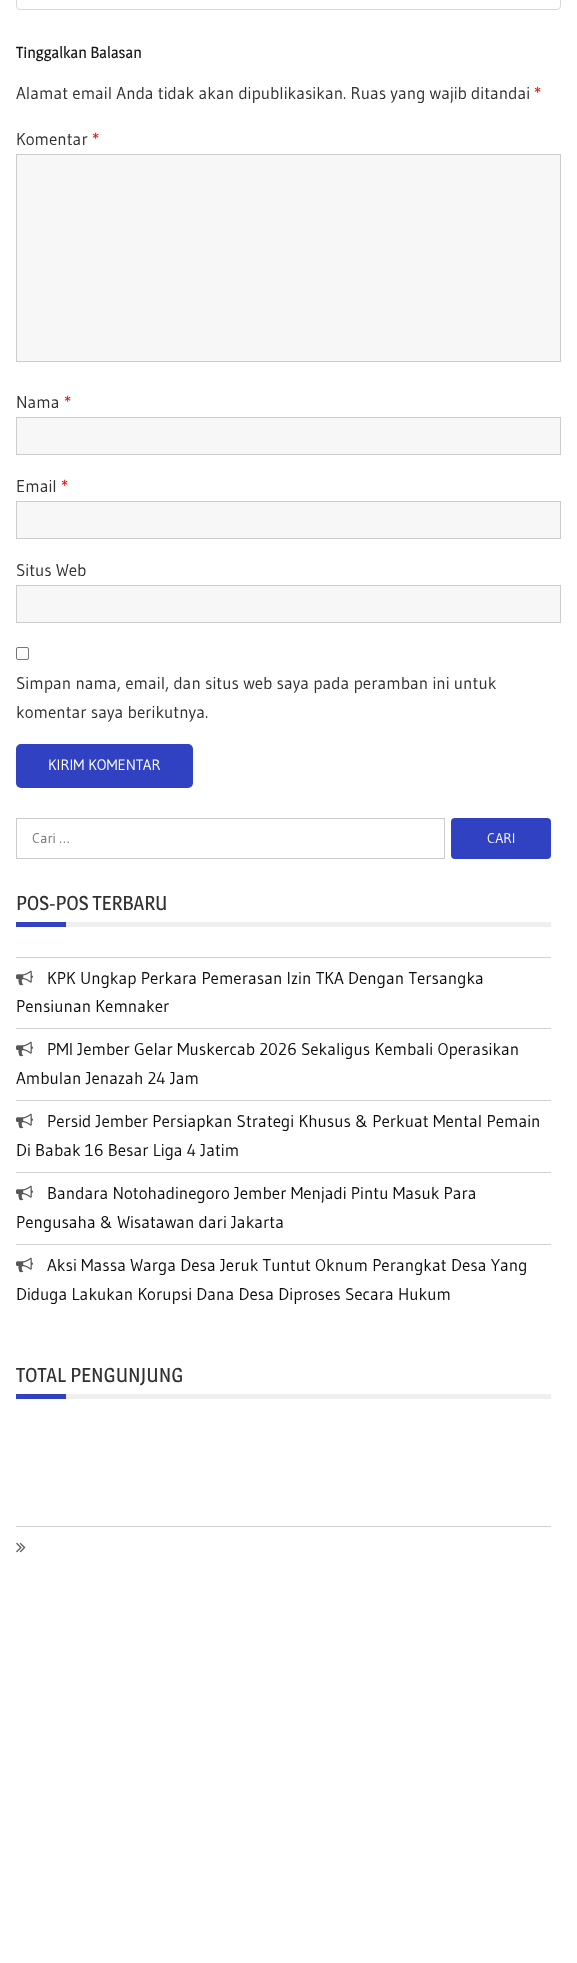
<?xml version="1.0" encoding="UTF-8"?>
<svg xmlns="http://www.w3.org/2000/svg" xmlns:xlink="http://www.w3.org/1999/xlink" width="577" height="1963">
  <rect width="100%" height="100%" fill="#ffffff" />
  <rect x="16.5" y="-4.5" width="544" height="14" rx="3.5" fill="none" stroke="#d9d9d9" />
  <rect x="16.5" y="154.5" width="544" height="207" fill="#f7f7f7" stroke="#cccccc" />
  <rect x="16.5" y="417.5" width="544" height="37" fill="#f7f7f7" stroke="#cccccc" />
  <rect x="16.5" y="501.5" width="544" height="37" fill="#f7f7f7" stroke="#cccccc" />
  <rect x="16.5" y="585.5" width="544" height="37" fill="#f7f7f7" stroke="#cccccc" />
  <rect x="16.5" y="647.5" width="12" height="12" rx="1.5" fill="none" stroke="#767676" />
  <rect x="16" y="744" width="177" height="44" rx="5" fill="#3041c1" />
  <rect x="16.5" y="818.5" width="428" height="40" fill="none" stroke="#cccccc" />
  <rect x="451" y="818" width="100" height="41" rx="4" fill="#3041c1" />
  <rect x="66" y="922" width="485" height="5" fill="#efefef" />
  <rect x="16" y="922" width="50" height="5" fill="#3041c1" />
  <rect x="16" y="957" width="535" height="1" fill="#d2d2d2" />
  <image x="16" y="970" width="17" height="16" xlink:href="image1.png" />
  <rect x="16" y="1028" width="535" height="1" fill="#d2d2d2" />
  <image x="16" y="1041" width="17" height="16" xlink:href="image1.png" />
  <rect x="16" y="1100" width="535" height="1" fill="#d2d2d2" />
  <image x="16" y="1113" width="17" height="16" xlink:href="image1.png" />
  <rect x="16" y="1172" width="535" height="1" fill="#d2d2d2" />
  <image x="16" y="1185" width="17" height="16" xlink:href="image1.png" />
  <rect x="16" y="1244" width="535" height="1" fill="#d2d2d2" />
  <image x="16" y="1257" width="17" height="16" xlink:href="image1.png" />
  <rect x="66" y="1394" width="485" height="5" fill="#efefef" />
  <rect x="16" y="1394" width="50" height="5" fill="#3041c1" />
  <rect x="16" y="1526" width="535" height="1" fill="#d2d2d2" />
  <image x="16" y="1542" width="10" height="11" xlink:href="image2.png" />
  <text x="16" y="58" style="font-family: Magra; font-size: 16px; fill: #151515">Tinggalkan Balasan</text>
  <text x="16" y="99" style="font-family: Gudea; font-size: 17px; fill: #313131">Alamat email Anda tidak akan dipublikasikan. Ruas yang wajib ditandai</text>
  <text x="534" y="99" style="font-family: Gudea; font-size: 17px; fill: #de0e0e">*</text>
  <text x="16" y="145" style="font-family: Gudea; font-size: 17px; fill: #313131">Komentar</text>
  <text x="92" y="145" style="font-family: Gudea; font-size: 17px; fill: #de0e0e">*</text>
  <text x="16" y="408" style="font-family: Gudea; font-size: 17px; fill: #313131">Nama</text>
  <text x="64" y="408" style="font-family: Gudea; font-size: 17px; fill: #de0e0e">*</text>
  <text x="16" y="492" style="font-family: Gudea; font-size: 17px; fill: #313131">Email</text>
  <text x="61" y="492" style="font-family: Gudea; font-size: 17px; fill: #de0e0e">*</text>
  <text x="16" y="576" style="font-family: Gudea; font-size: 17px; fill: #313131">Situs Web</text>
  <text x="16" y="689" style="font-family: Gudea; font-size: 17px; fill: #313131">Simpan nama, email, dan situs web saya pada peramban ini untuk</text>
  <text x="16" y="718" style="font-family: Gudea; font-size: 17px; fill: #313131">komentar saya berikutnya.</text>
  <text x="48" y="770" style="font-family: Gudea; font-size: 15px; fill: #ffffff">KIRIM KOMENTAR</text>
  <text x="32" y="843" style="font-family: Gudea; font-size: 14px; fill: #757575">Cari …</text>
  <text x="487" y="843" style="font-family: Gudea; font-size: 14px; fill: #ffffff">CARI</text>
  <text x="16" y="910" style="font-family: Magra; font-size: 20px; fill: #313131">POS-POS TERBARU</text>
  <text x="47" y="984" style="font-family: Gudea; font-size: 17px; fill: #0c0c0c">KPK Ungkap Perkara Pemerasan Izin TKA Dengan Tersangka</text>
  <text x="16" y="1012" style="font-family: Gudea; font-size: 17px; fill: #0c0c0c">Pensiunan Kemnaker</text>
  <text x="47" y="1055" style="font-family: Gudea; font-size: 17px; fill: #0c0c0c">PMI Jember Gelar Muskercab 2026 Sekaligus Kembali Operasikan</text>
  <text x="16" y="1084" style="font-family: Gudea; font-size: 17px; fill: #0c0c0c">Ambulan Jenazah 24 Jam</text>
  <text x="47" y="1127" style="font-family: Gudea; font-size: 17px; fill: #0c0c0c">Persid Jember Persiapkan Strategi Khusus &amp; Perkuat Mental Pemain</text>
  <text x="16" y="1156" style="font-family: Gudea; font-size: 17px; fill: #0c0c0c">Di Babak 16 Besar Liga 4 Jatim</text>
  <text x="47" y="1199" style="font-family: Gudea; font-size: 17px; fill: #0c0c0c">Bandara Notohadinegoro Jember Menjadi Pintu Masuk Para</text>
  <text x="16" y="1228" style="font-family: Gudea; font-size: 17px; fill: #0c0c0c">Pengusaha &amp; Wisatawan dari Jakarta</text>
  <text x="47" y="1271" style="font-family: Gudea; font-size: 17px; fill: #0c0c0c">Aksi Massa Warga Desa Jeruk Tuntut Oknum Perangkat Desa Yang</text>
  <text x="16" y="1300" style="font-family: Gudea; font-size: 17px; fill: #0c0c0c">Diduga Lakukan Korupsi Dana Desa Diproses Secara Hukum</text>
  <text x="16" y="1382" style="font-family: Magra; font-size: 20px; fill: #313131">TOTAL PENGUNJUNG</text>
</svg>
